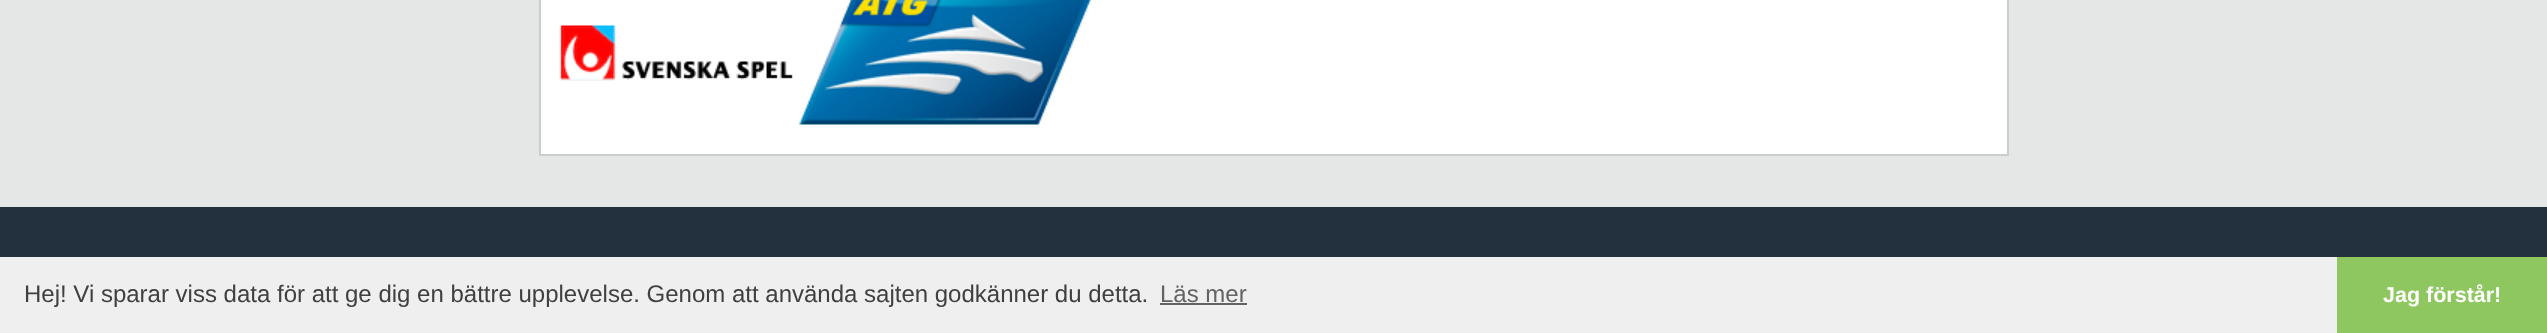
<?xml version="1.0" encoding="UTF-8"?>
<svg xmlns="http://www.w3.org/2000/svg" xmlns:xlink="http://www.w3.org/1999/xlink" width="2547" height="333">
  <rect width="100%" height="100%" fill="#23303d" />
  <rect width="2547" height="207" fill="#e5e7e7" />
  <rect x="540" y="-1" width="1468" height="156" fill="#ffffff" stroke="#c9cdcd" stroke-width="2" />
  <image x="559" y="25" width="234" height="56" xlink:href="image1.png" />
  <image x="798" y="0" width="293" height="125" xlink:href="image2.png" />
  <rect y="257" width="2337" height="76" fill="#efefef" />
  <rect x="1160" y="303" width="87" height="2" fill="#636363" />
  <rect x="2337" y="257" width="210" height="76" fill="#8ec760" />
  <text x="24" y="302" style="font-family: Liberation Sans; font-size: 24px; fill: #404040">Hej! Vi sparar viss data för att ge dig en bättre upplevelse. Genom att använda sajten godkänner du detta.</text>
  <text x="1160" y="302" style="font-family: Liberation Sans; font-size: 24px; fill: #636363">Läs mer</text>
  <text x="2383" y="302" style="font-family: Liberation Sans; font-size: 21.5px; font-weight: bold; fill: #ffffff">Jag förstår!</text>
</svg>
